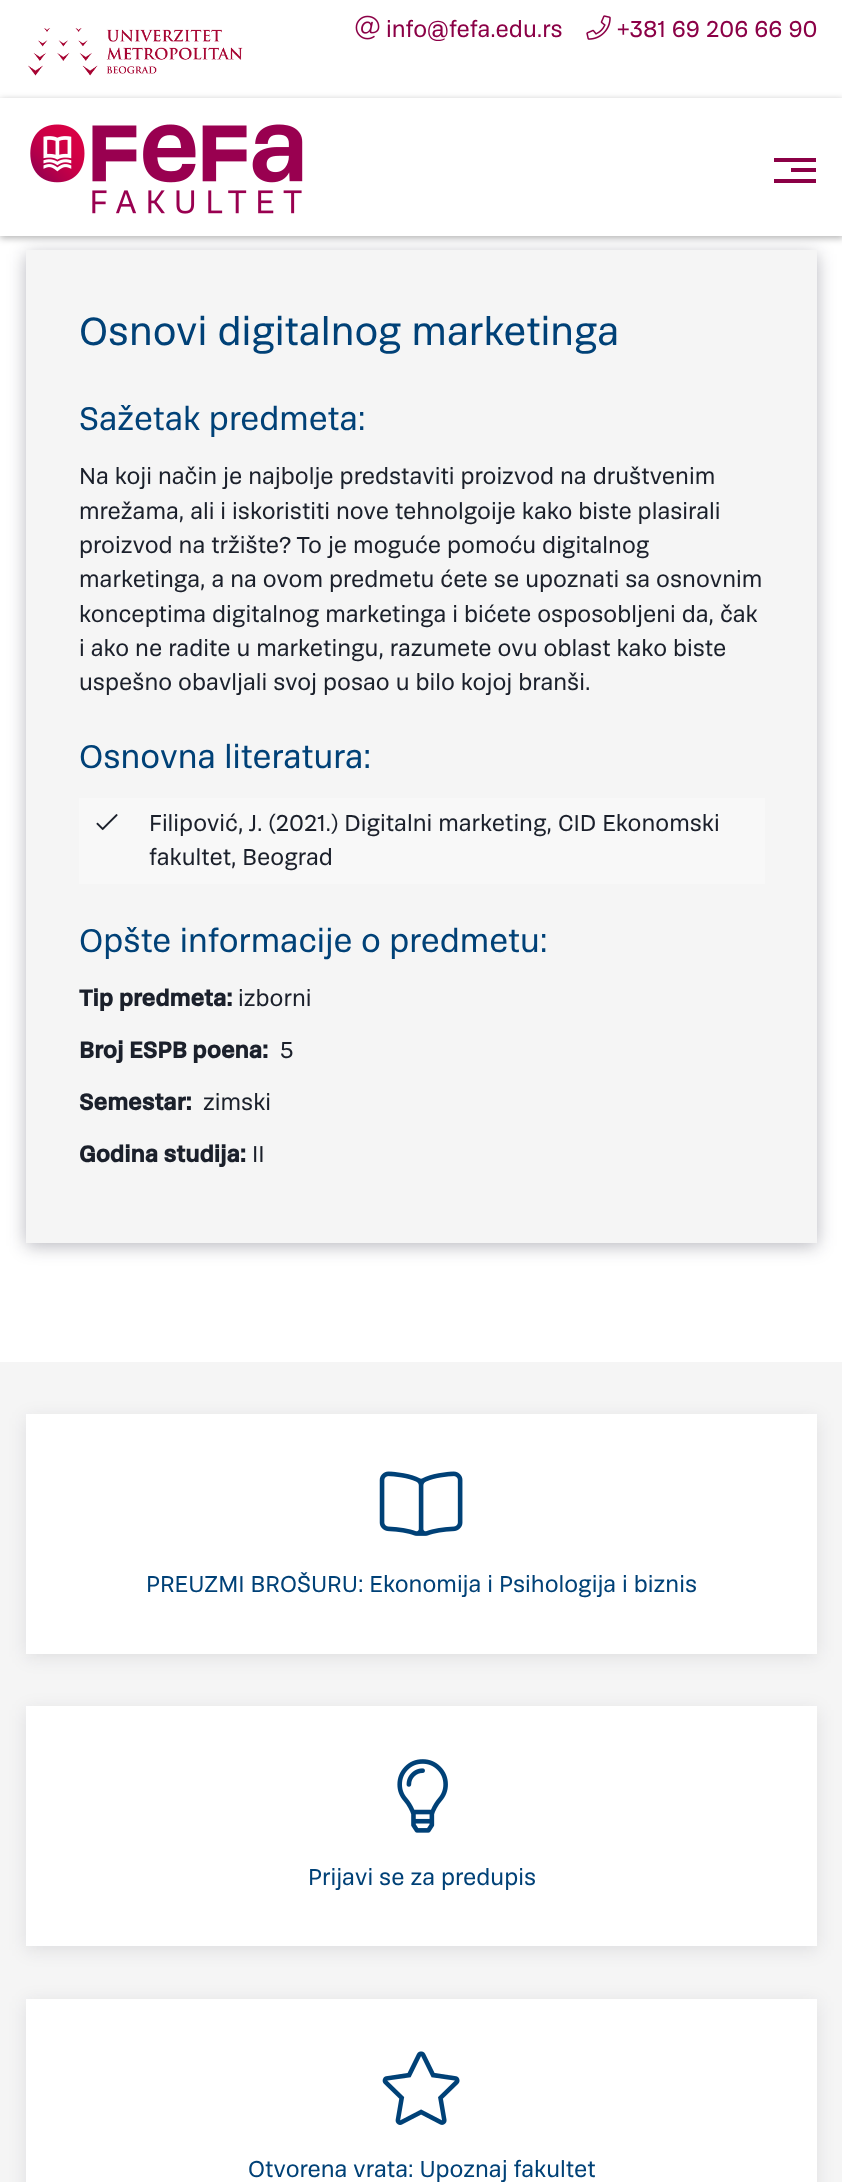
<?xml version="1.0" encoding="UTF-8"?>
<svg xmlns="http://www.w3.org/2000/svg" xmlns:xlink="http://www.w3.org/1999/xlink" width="842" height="2182">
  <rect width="100%" height="100%" fill="#ffffff" />
  <image x="28" y="28" width="215" height="48" xlink:href="image1.png" />
  <image x="355" y="15" width="25" height="25" xlink:href="image2.png" />
  <image x="586" y="15" width="25" height="25" xlink:href="image3.png" />
  <rect y="100" width="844" height="138" fill="#000000" fill-opacity="0.3" filter="blur(3.5px)" />
  <rect x="26" y="254" width="791" height="992" fill="#0f1028" fill-opacity="0.3" filter="blur(9px)" />
  <rect y="98" width="842" height="138" fill="#ffffff" />
  <image x="30" y="124" width="273" height="90" xlink:href="image4.png" />
  <rect x="774" y="158" width="42" height="4" fill="#8b0046" />
  <rect x="791" y="168" width="25" height="4" fill="#8b0046" />
  <rect x="774" y="179" width="42" height="4" fill="#8b0046" />
  <rect x="26" y="250" width="791" height="993" fill="#f5f5f5" />
  <rect x="79" y="798" width="686" height="86" fill="#f8f8f8" />
  <image x="96" y="814" width="22" height="17" xlink:href="image5.png" />
  <rect y="1362" width="842" height="820" fill="#f5f5f5" />
  <rect x="26" y="1418" width="791" height="239" fill="#0f1028" fill-opacity="0.1" filter="blur(9px)" />
  <rect x="26" y="1414" width="791" height="240" fill="#ffffff" />
  <image x="379" y="1471" width="84" height="65" xlink:href="image6.png" />
  <rect x="26" y="1710" width="791" height="240" fill="#0f1028" fill-opacity="0.1" filter="blur(9px)" />
  <rect x="26" y="1706" width="791" height="240" fill="#ffffff" />
  <image x="397" y="1759" width="51" height="74" xlink:href="image7.png" />
  <rect x="26" y="2002" width="791" height="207" fill="#0f1028" fill-opacity="0.1" filter="blur(9px)" />
  <rect x="26" y="1999" width="791" height="183" fill="#ffffff" />
  <image x="382" y="2051" width="78" height="74" xlink:href="image8.png" />
  <text x="386" y="37" style="font-family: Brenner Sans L; font-size: 24.5px; fill: #8b0046">info@fefa.edu.rs</text>
  <text x="617" y="37" style="font-family: Brenner Sans L; font-size: 24.5px; fill: #8b0046">+381 69 206 66 90</text>
  <text x="79" y="345" style="font-family: Brenner Sans L; font-size: 42px; fill: #004177">Osnovi digitalnog marketinga</text>
  <text x="79" y="430" style="font-family: Brenner Sans L; font-size: 35px; fill: #004177">Sažetak predmeta:</text>
  <text x="79" y="484" style="font-family: Brenner Sans L; font-size: 24.5px; fill: #1b202b">Na koji način je najbolje predstaviti proizvod na društvenim</text>
  <text x="79" y="519" style="font-family: Brenner Sans L; font-size: 24.5px; fill: #1b202b">mrežama, ali i iskoristiti nove tehnolgoije kako biste plasirali</text>
  <text x="79" y="553" style="font-family: Brenner Sans L; font-size: 24.5px; fill: #1b202b">proizvod na tržište? To je moguće pomoću digitalnog</text>
  <text x="79" y="587" style="font-family: Brenner Sans L; font-size: 24.5px; fill: #1b202b">marketinga, a na ovom predmetu ćete se upoznati sa osnovnim</text>
  <text x="79" y="622" style="font-family: Brenner Sans L; font-size: 24.5px; fill: #1b202b">konceptima digitalnog marketinga i bićete osposobljeni da, čak</text>
  <text x="79" y="656" style="font-family: Brenner Sans L; font-size: 24.5px; fill: #1b202b">i ako ne radite u marketingu, razumete ovu oblast kako biste</text>
  <text x="79" y="690" style="font-family: Brenner Sans L; font-size: 24.5px; fill: #1b202b">uspešno obavljali svoj posao u bilo kojoj branši.</text>
  <text x="79" y="768" style="font-family: Brenner Sans L; font-size: 35px; fill: #004177">Osnovna literatura:</text>
  <text x="149" y="831" style="font-family: Brenner Sans L; font-size: 24.5px; fill: #1b202b">Filipović, J. (2021.) Digitalni marketing, CID Ekonomski</text>
  <text x="149" y="865" style="font-family: Brenner Sans L; font-size: 24.5px; fill: #1b202b">fakultet, Beograd</text>
  <text x="79" y="952" style="font-family: Brenner Sans L; font-size: 35px; fill: #004177">Opšte informacije o predmetu:</text>
  <text x="79" y="1006" style="font-family: Brenner Sans L; font-size: 24.5px; font-weight: bold; fill: #1b202b">Tip predmeta:</text>
  <text x="238" y="1006" style="font-family: Brenner Sans L; font-size: 24.5px; fill: #1b202b">izborni</text>
  <text x="79" y="1058" style="font-family: Brenner Sans L; font-size: 24.5px; font-weight: bold; fill: #1b202b">Broj ESPB poena:</text>
  <text x="280" y="1058" style="font-family: Brenner Sans L; font-size: 24.5px; fill: #1b202b">5</text>
  <text x="79" y="1110" style="font-family: Brenner Sans L; font-size: 24.5px; font-weight: bold; fill: #1b202b">Semestar:</text>
  <text x="203" y="1110" style="font-family: Brenner Sans L; font-size: 24.5px; fill: #1b202b">zimski</text>
  <text x="79" y="1162" style="font-family: Brenner Sans L; font-size: 24.5px; font-weight: bold; fill: #1b202b">Godina studija:</text>
  <text x="252" y="1162" style="font-family: Brenner Sans L; font-size: 24.5px; fill: #1b202b">II</text>
  <text x="146" y="1592" style="font-family: Brenner Sans L; font-size: 24.5px; fill: #004177">PREUZMI BROŠURU: Ekonomija i Psihologija i biznis</text>
  <text x="308" y="1885" style="font-family: Brenner Sans L; font-size: 24.5px; fill: #004177">Prijavi se za predupis</text>
  <text x="248" y="2177" style="font-family: Brenner Sans L; font-size: 24.5px; fill: #004177">Otvorena vrata: Upoznaj fakultet</text>
</svg>
